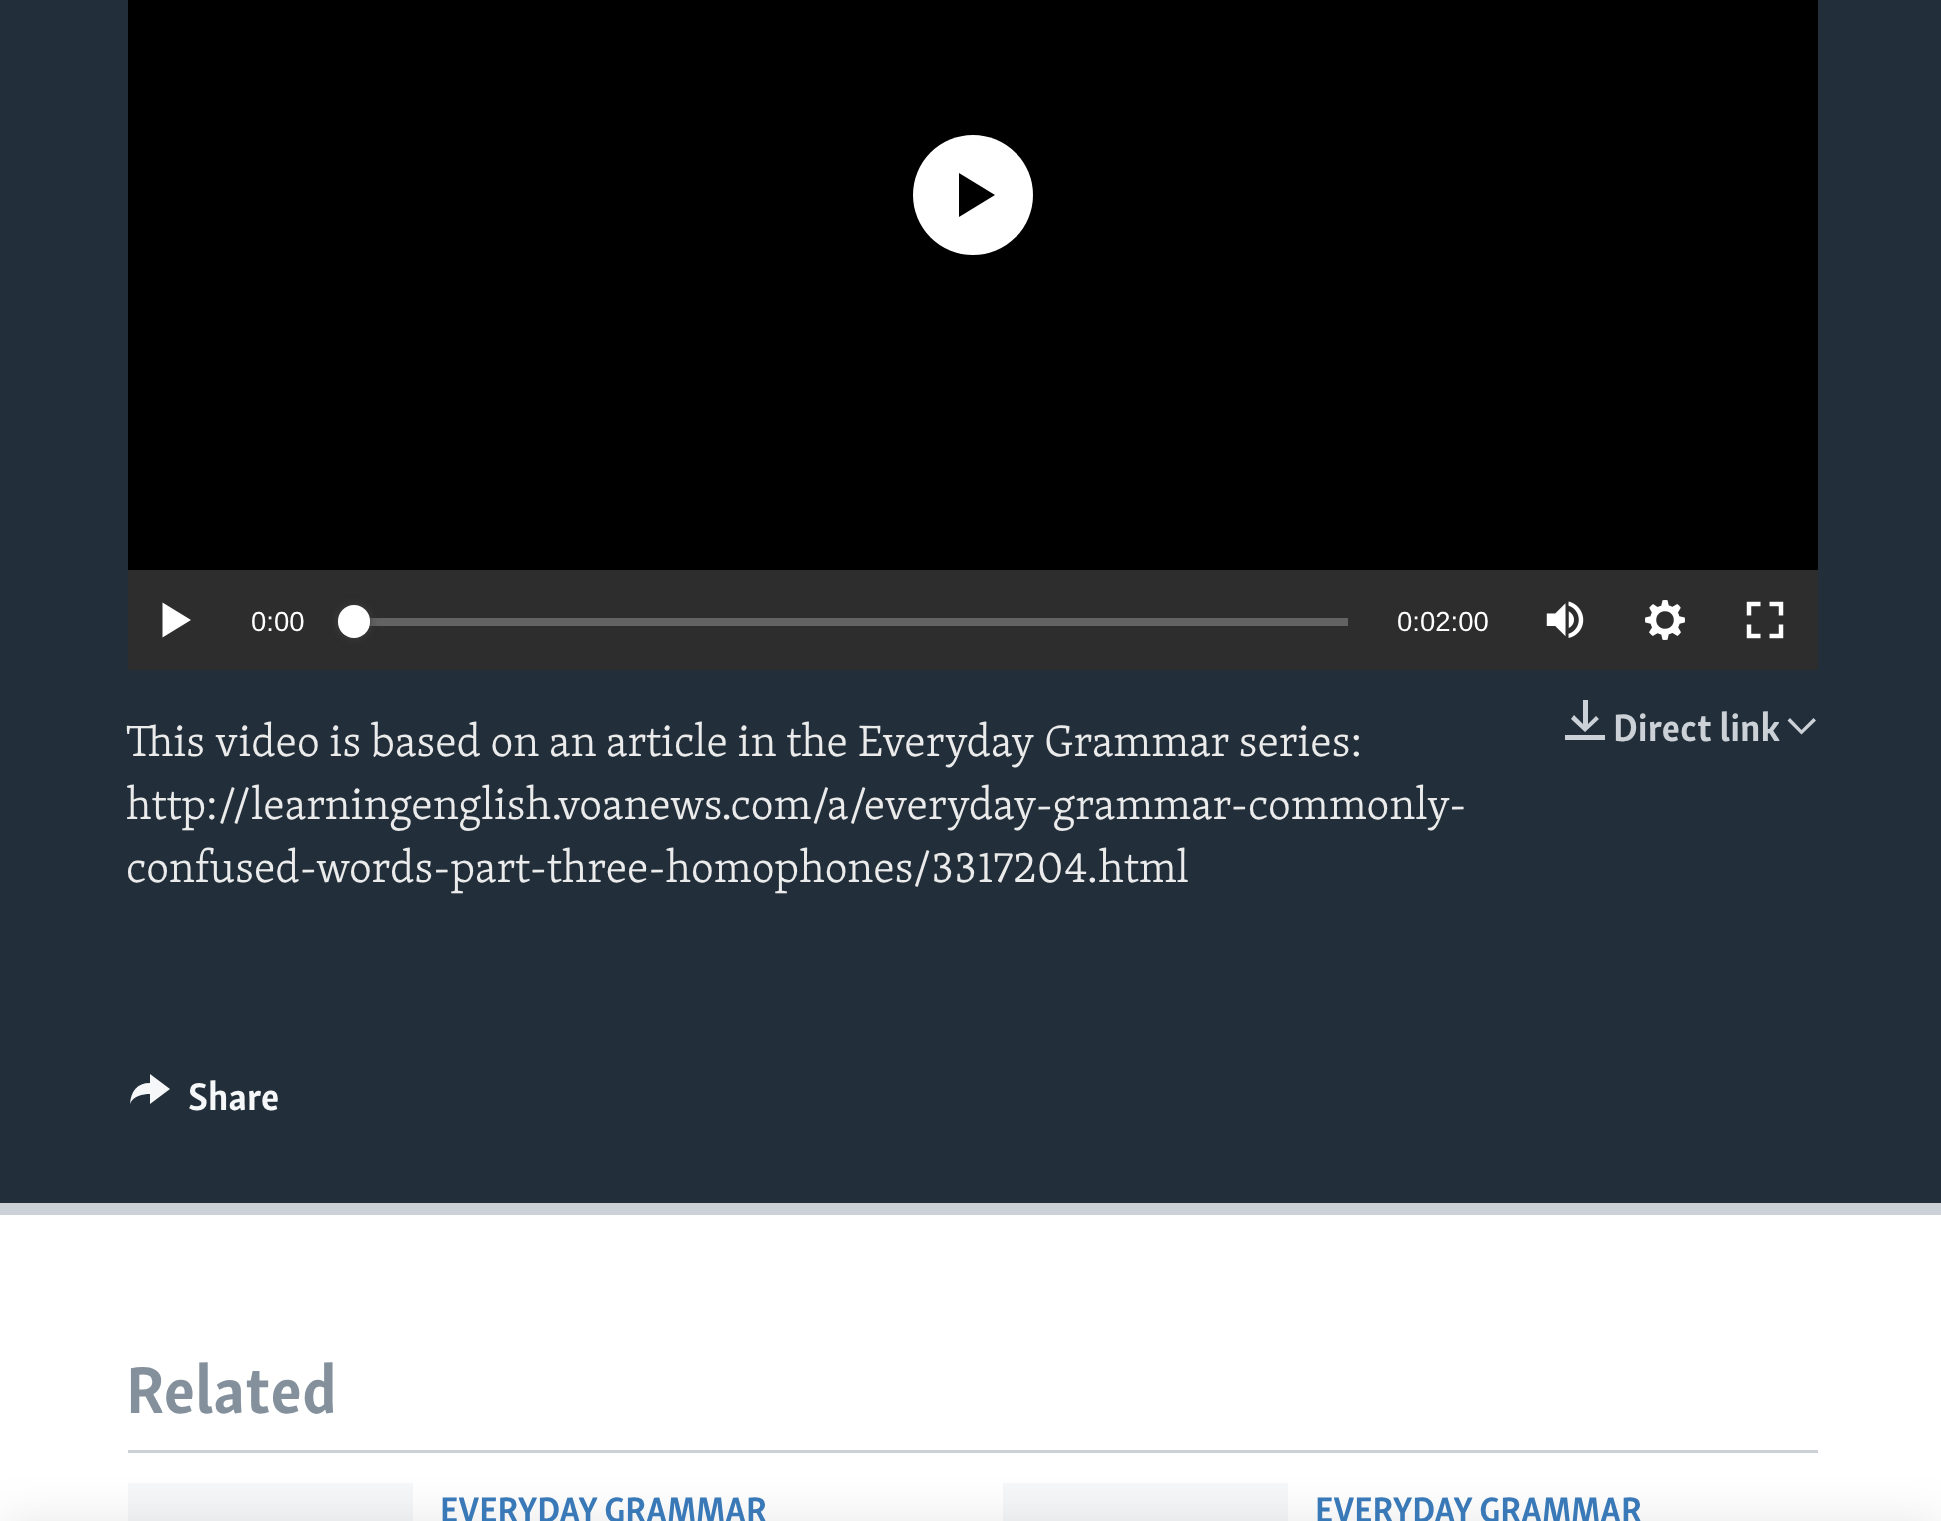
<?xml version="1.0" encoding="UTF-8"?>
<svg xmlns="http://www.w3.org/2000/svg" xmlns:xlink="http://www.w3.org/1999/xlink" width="1941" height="1521">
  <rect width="100%" height="100%" fill="#ffffff" />
  <rect width="1941" height="1203" fill="#222f3a" />
  <rect y="1203" width="1941" height="12" fill="#cbd1d6" />
  <rect x="128" width="1690" height="570" fill="#000000" />
  <circle cx="973" cy="195" r="60" fill="#ffffff" />
  <path d="M 959 217 l 36 -22 l -36 -22 z" fill="#000000" />
  <rect x="128" y="570" width="1690" height="100" fill="#2d2d2d" />
  <path d="M 162.5 637.5 l 28.5 -17.5 l -28.5 -17.5 z" fill="#ffffff" />
  <rect x="369" y="618" width="979" height="8" fill="#626262" />
  <rect x="338" y="605" width="32" height="33" rx="16" fill="#414144" filter="blur(4px)" />
  <rect x="338" y="605" width="32" height="33" rx="16" fill="#ffffff" />
  <image x="1546" y="601" width="38" height="37" xlink:href="image1.png" />
  <image x="1645" y="600" width="40" height="40" xlink:href="image2.png" />
  <image x="1746" y="601" width="38" height="38" xlink:href="image3.png" />
  <path d="M 1605 735 v 5 h -40 v -5 z m -6 -16 l -3 -3 l -8 8 v -24 h -5 v 24 l -9 -9 l -3 4 l 14 13 z" fill="#cbd1d6" />
  <path d="M 1787.5 720.5 l 14 14 l 14.5 -14 l -2.5 -2.5 l -12 12 l -11.5 -12 z" fill="#cbd1d6" />
  <path d="M 130 1104 c 1 -13 7 -21 20 -21 v -9 l 20 15 l -20 15 v -10 c -7 0 -17 2 -20 10 z" fill="#f6f7f8" />
  <rect x="128" y="1450" width="1690" height="3" fill="#cbd1d6" />
  <rect x="128" y="1483" width="285" height="38" fill="#f6f7f8" />
  <rect x="1003" y="1483" width="285" height="38" fill="#f6f7f8" />
  <rect y="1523" width="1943" height="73" fill="#000000" fill-opacity="0.1" filter="blur(25px)" />
  <text x="251" y="631" style="font-family: Liberation Sans; font-size: 27.5px; fill: #ffffff">0:00</text>
  <text x="1397" y="631" style="font-family: Liberation Sans; font-size: 27.5px; fill: #ffffff">0:02:00</text>
  <text x="126" y="756" style="font-family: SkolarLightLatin; font-size: 45px; font-weight: 300; fill: #ebebeb">This video is based on an article in the Everyday Grammar series:</text>
  <text x="126" y="819" style="font-family: SkolarLightLatin; font-size: 45px; font-weight: 300; fill: #ebebeb">http://learningenglish.voanews.com/a/everyday-grammar-commonly-</text>
  <text x="126" y="882" style="font-family: SkolarLightLatin; font-size: 45px; font-weight: 300; fill: #ebebeb">confused-words-part-three-homophones/3317204.html</text>
  <text x="1613" y="741" style="font-family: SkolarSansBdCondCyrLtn; font-size: 39.5px; font-weight: bold; fill: #cbd1d6">Direct link</text>
  <text x="188" y="1110" style="font-family: SkolarSansBdCondCyrLtn; font-size: 39.5px; font-weight: bold; fill: #f6f7f8">Share</text>
  <text x="126" y="1413" style="font-family: SkolarSansBdCondCyrLtn; font-size: 67.5px; font-weight: bold; fill: #84919d">Related</text>
  <text x="440" y="1522" style="font-family: SkolarSansBdCondCyrLtn; font-size: 36.5px; font-weight: bold; fill: #3a79b7">EVERYDAY GRAMMAR</text>
  <text x="1315" y="1522" style="font-family: SkolarSansBdCondCyrLtn; font-size: 36.5px; font-weight: bold; fill: #3a79b7">EVERYDAY GRAMMAR</text>
</svg>
